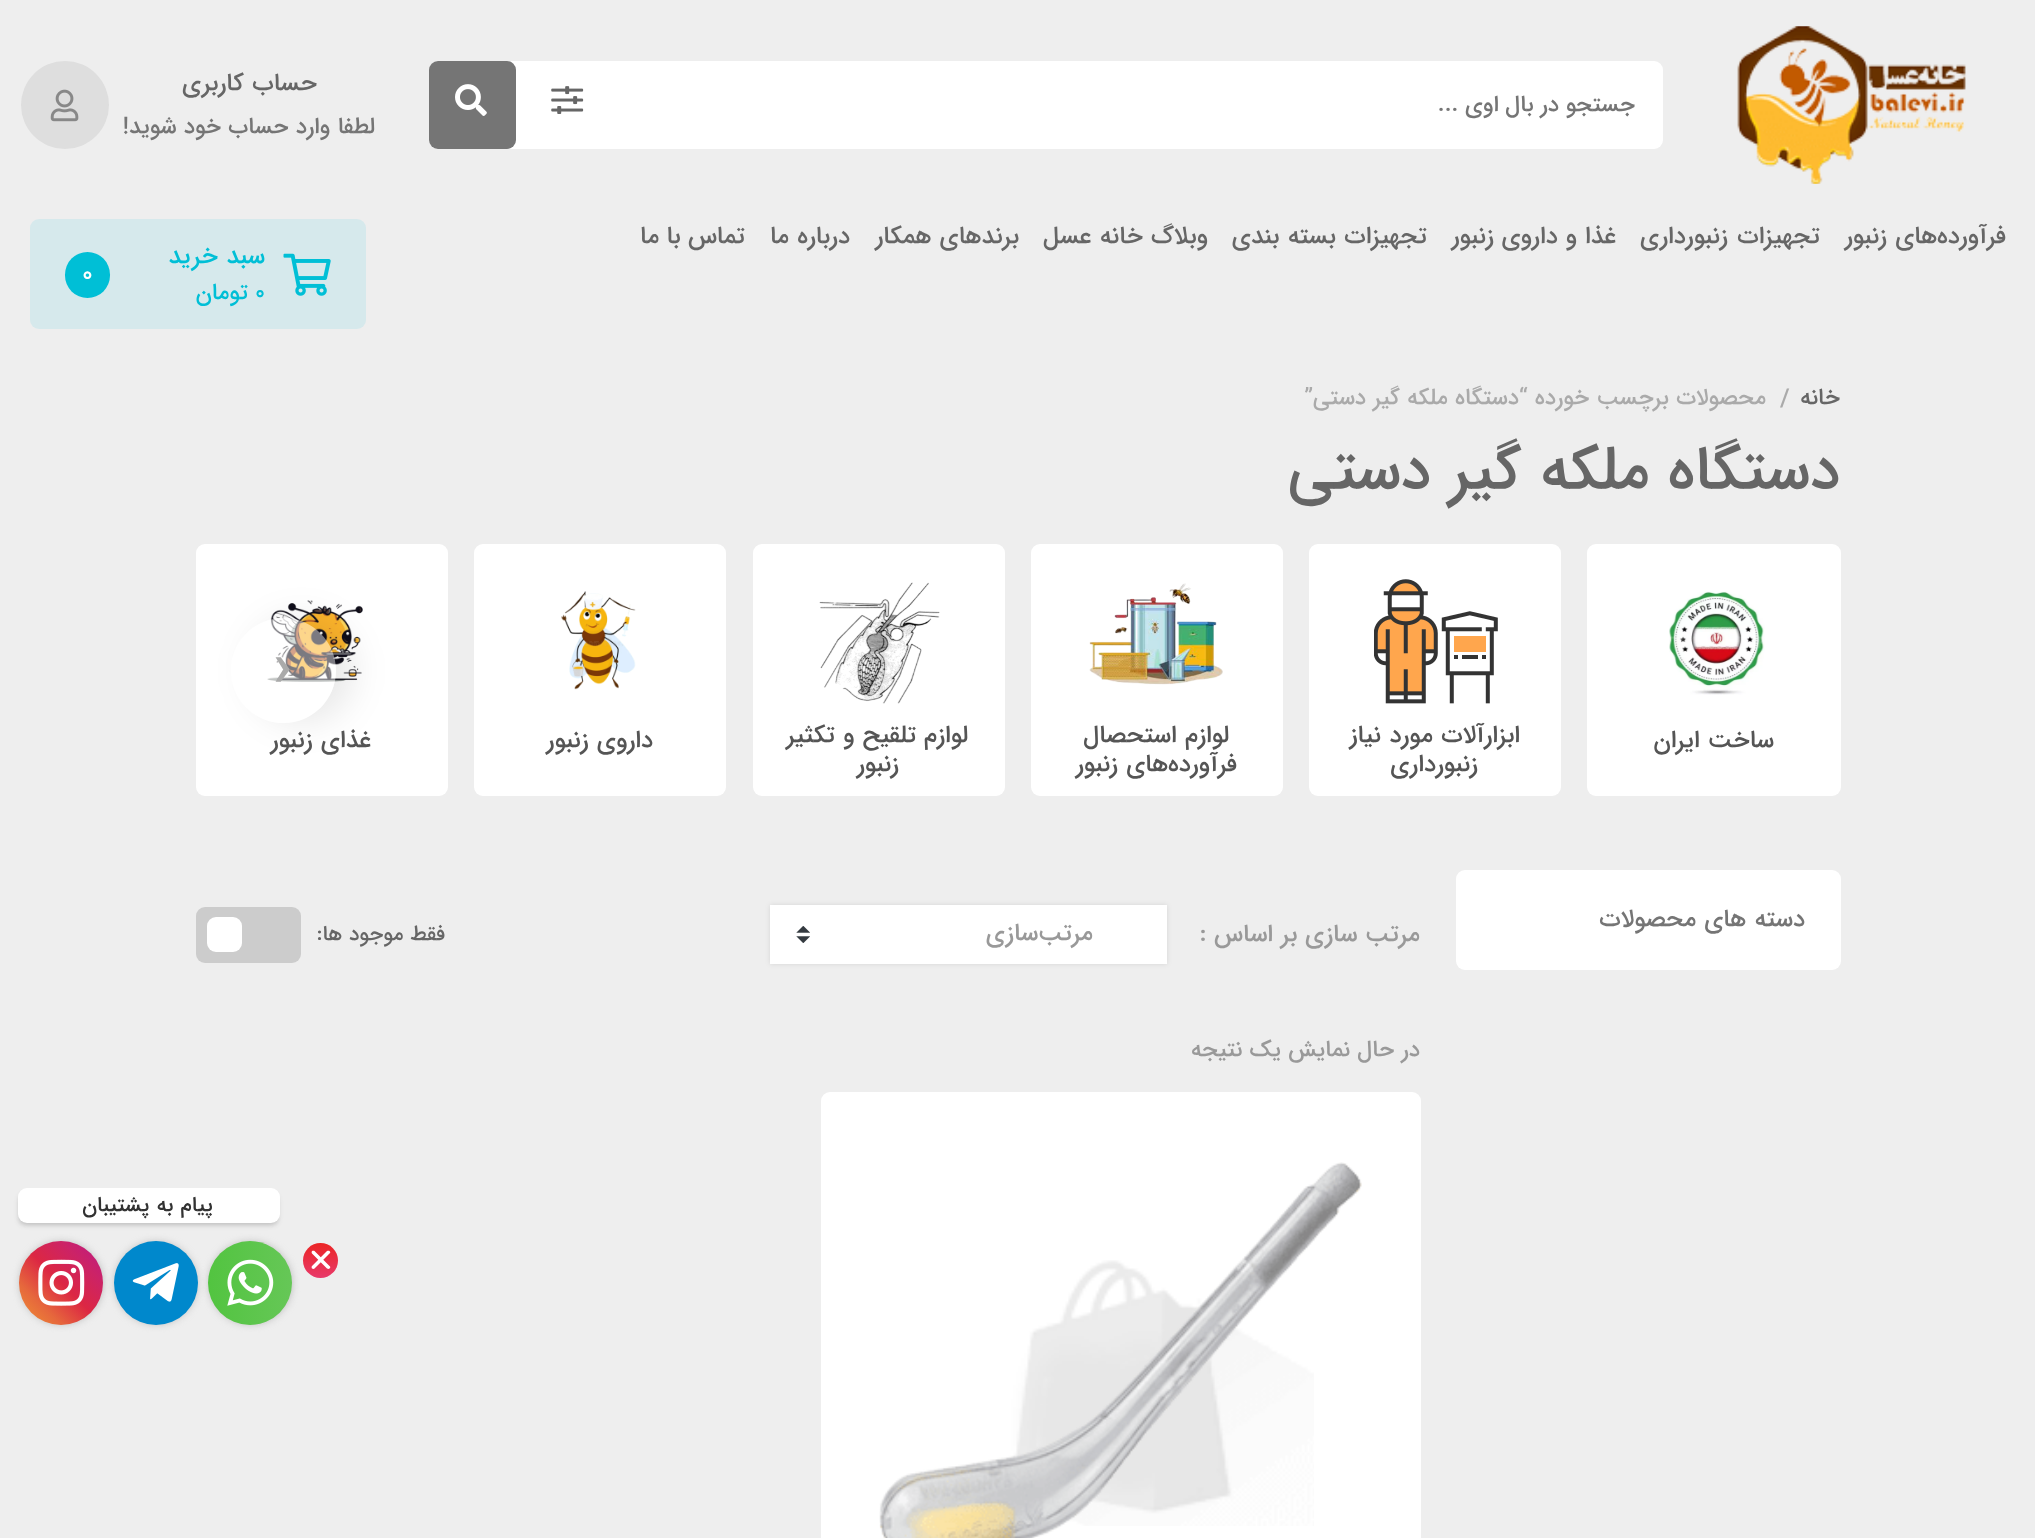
<?xml version="1.0" encoding="UTF-8"?>
<svg xmlns="http://www.w3.org/2000/svg" xmlns:xlink="http://www.w3.org/1999/xlink" width="2035" height="1538">
  <defs>
    <clipPath id="clip1"><path d="M 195 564 h 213 v 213 h -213 z m 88.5 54 c 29 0 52.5 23.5 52.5 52.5 c 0 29 -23.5 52.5 -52.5 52.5 c -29 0 -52.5 -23.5 -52.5 -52.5 c 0 -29 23.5 -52.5 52.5 -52.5 z" clip-rule="evenodd" /></clipPath>
    <linearGradient id="g1" gradientUnits="userSpaceOnUse" x1="320" y1="1243" x2="320" y2="1278"><stop offset="0" stop-color="#eb2424" /><stop offset="1" stop-color="#e83a6a" /></linearGradient>
    <linearGradient id="g2" gradientUnits="userSpaceOnUse" x1="292" y1="1283" x2="208" y2="1283"><stop offset="0" stop-color="#66c757" /><stop offset="1" stop-color="#52c440" /></linearGradient>
    <linearGradient id="g3" gradientUnits="userSpaceOnUse" x1="19" y1="1325" x2="103" y2="1241"><stop offset="0" stop-color="#f09433" /><stop offset="0.25" stop-color="#e6683c" /><stop offset="0.5" stop-color="#dc2743" /><stop offset="0.75" stop-color="#cc2366" /><stop offset="1" stop-color="#bc1888" /></linearGradient>
  </defs>
  <rect width="100%" height="100%" fill="#eeeeee" />
  <image x="1737" y="26" width="229" height="158" xlink:href="image1.png" />
  <rect x="429" y="61" width="1234" height="88" rx="9" fill="#ffffff" />
  <image x="551" y="86" width="33" height="28" xlink:href="image2.png" />
  <rect x="429" y="61" width="87" height="88" rx="9" fill="#757575" />
  <image x="455" y="84" width="32" height="32" xlink:href="image3.png" />
  <circle cx="65" cy="105" r="44" fill="#dedede" />
  <image x="50" y="89" width="29" height="33" xlink:href="image4.png" />
  <rect x="30" y="219" width="336" height="110" rx="9" fill="#d6e9ec" />
  <image x="283" y="253" width="48" height="43" xlink:href="image5.png" />
  <rect x="65" y="252" width="45" height="46" rx="22.5" fill="#00bfd6" />
  <rect x="196" y="544" width="252" height="252" rx="9" fill="#ffffff" />
  <image x="267" y="600" width="96" height="82" xlink:href="image11.png" />
  <g clip-path="url(#clip1)">
    <rect x="249" y="618" width="105" height="105" rx="52.5" fill="#000000" fill-opacity="0.09" filter="blur(17.5px)" />
  </g>
  <circle cx="283.5" cy="670.5" r="52.5" fill="#ffffff" fill-opacity="0.45" />
  <rect x="1587" y="544" width="254" height="252" rx="9" fill="#ffffff" />
  <image x="1669" y="591" width="96" height="104" xlink:href="image6.png" />
  <rect x="1309" y="544" width="252" height="252" rx="9" fill="#ffffff" />
  <image x="1374" y="579" width="124" height="125" xlink:href="image7.png" />
  <rect x="1031" y="544" width="252" height="252" rx="9" fill="#ffffff" />
  <image x="1089" y="583" width="134" height="102" xlink:href="image8.png" />
  <rect x="753" y="544" width="252" height="252" rx="9" fill="#ffffff" />
  <image x="819" y="582" width="121" height="122" xlink:href="image9.png" />
  <rect x="474" y="544" width="252" height="252" rx="9" fill="#ffffff" />
  <image x="561" y="591" width="75" height="99" xlink:href="image10.png" />
  <rect x="1456" y="870" width="385" height="100" rx="9" fill="#ffffff" />
  <rect x="770" y="905" width="397" height="59" fill="#000000" fill-opacity="0.1" filter="blur(2.5px)" />
  <rect x="770" y="905" width="397" height="59" fill="#ffffff" />
  <image x="796" y="926" width="14" height="17" xlink:href="image12.png" />
  <rect x="196" y="907" width="105" height="56" rx="9" fill="#cccccc" />
  <rect x="207" y="917" width="35" height="35" rx="9" fill="#ffffff" />
  <rect x="821" y="1092" width="600" height="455" rx="9" fill="#ffffff" />
  <image x="1011" y="1260" width="303" height="266" xlink:href="image13.png" />
  <image x="879" y="1162" width="483" height="376" xlink:href="image14.png" />
  <rect x="19" y="1194" width="259" height="31" rx="7" fill="#2b2b2b" fill-opacity="0.25" filter="blur(2.5px)" />
  <rect x="18" y="1188" width="262" height="35" rx="9" fill="#ffffff" />
  <rect x="210" y="1243" width="81" height="80" rx="40" fill="#aaaaaa" filter="blur(4.5px)" />
  <circle cx="320.5" cy="1260.5" r="17.5" fill="url(#g1)" />
  <path d="M 312 1266 l 15 -15 c 1 -0.5 2 -0.5 2.5 0 c 1 1 1 2 0 2.5 l -15 15 c -0.5 0.5 -1.5 0.5 -2.5 0 c -0.5 -0.5 -0.5 -2 0 -2.5 z" fill="#ffffff" />
  <path d="M 314.5 1251 l 15 15 c 1 0.5 1 2 0 2.5 c -0.5 0.5 -1.5 0.5 -2.5 0 l -15 -15 c -0.5 -0.5 -0.5 -1.5 0 -2.5 c 1 -0.5 2 -0.5 2.5 0 z" fill="#ffffff" />
  <circle cx="250" cy="1283" r="42" fill="url(#g2)" />
  <image x="227" y="1259" width="47" height="47" xlink:href="image15.png" />
  <rect x="116" y="1243" width="80" height="80" rx="40" fill="#aaaaaa" filter="blur(4.5px)" />
  <circle cx="156" cy="1283" r="42" fill="#0088cc" />
  <image x="132" y="1263" width="47" height="39" xlink:href="image16.png" />
  <rect x="21" y="1243" width="81" height="80" rx="40" fill="#aaaaaa" filter="blur(4.5px)" />
  <circle cx="61" cy="1283" r="42" fill="url(#g3)" />
  <image x="38" y="1259" width="47" height="47" xlink:href="image17.png" />
  <text x="1635" y="111" style="font-family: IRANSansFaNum; font-size: 22.75px; font-weight: 500; direction: rtl; fill: #757575">جستجو در بال اوی ...</text>
  <text x="317" y="90" word-spacing="1" style="font-family: IRANSansFaNum; font-size: 24.5px; font-weight: 500; letter-spacing: -0.1px; direction: rtl; fill: #666666">حساب کاربری</text>
  <text x="375" y="133" word-spacing="0.5" style="font-family: IRANSansFaNum; font-size: 22.75px; font-weight: 500; letter-spacing: -0.1px; direction: rtl; fill: #757575">لطفا وارد حساب خود شوید!</text>
  <text x="2006" y="243" word-spacing="1" style="font-family: IRANSansFaNum; font-size: 24.5px; font-weight: 500; letter-spacing: -0.1px; direction: rtl; fill: #666666">فرآورده‌های زنبور</text>
  <text x="1820" y="243" word-spacing="2" style="font-family: IRANSansFaNum; font-size: 24.5px; font-weight: 500; letter-spacing: -0.1px; direction: rtl; fill: #666666">تجهیزات زنبورداری</text>
  <text x="1616" y="243" word-spacing="0.5" style="font-family: IRANSansFaNum; font-size: 24.5px; font-weight: 500; letter-spacing: -0.1px; direction: rtl; fill: #666666">غذا و داروی زنبور</text>
  <text x="1427" y="243" word-spacing="1" style="font-family: IRANSansFaNum; font-size: 24.5px; font-weight: 500; letter-spacing: -0.1px; direction: rtl; fill: #666666">تجهیزات بسته بندی</text>
  <text x="1208" y="243" word-spacing="1" style="font-family: IRANSansFaNum; font-size: 24.5px; font-weight: 500; letter-spacing: -0.1px; direction: rtl; fill: #666666">وبلاگ خانه عسل</text>
  <text x="1019" y="243" word-spacing="1" style="font-family: IRANSansFaNum; font-size: 24.5px; font-weight: 500; letter-spacing: -0.1px; direction: rtl; fill: #666666">برندهای همکار</text>
  <text x="850" y="243" word-spacing="1" style="font-family: IRANSansFaNum; font-size: 24.5px; font-weight: 500; letter-spacing: -0.1px; direction: rtl; fill: #666666">درباره ما</text>
  <text x="745" y="243" style="font-family: IRANSansFaNum; font-size: 24.5px; font-weight: 500; letter-spacing: -0.1px; direction: rtl; fill: #666666">تماس با ما</text>
  <text x="265" y="263" word-spacing="1" style="font-family: IRANSansFaNum; font-size: 24.5px; font-weight: 500; letter-spacing: -0.1px; direction: rtl; fill: #00bfd6">سبد خرید</text>
  <text x="255" y="299" style="font-family: IRANSansFaNum; font-size: 22.75px; font-weight: 500; letter-spacing: -0.1px; fill: #00bfd6">0</text>
  <text x="248" y="299" style="font-family: IRANSansFaNum; font-size: 22.75px; font-weight: 500; letter-spacing: -0.1px; direction: rtl; fill: #00bfd6">تومان</text>
  <text x="82" y="281" style="font-family: IRANSansFaNum; font-size: 24.5px; font-weight: 500; letter-spacing: -0.1px; fill: #ffffff">0</text>
  <text x="1840" y="404" style="font-family: IRANSansFaNum; font-size: 22.75px; font-weight: 500; letter-spacing: -0.1px; direction: rtl; fill: #666666">خانه</text>
  <text x="1780" y="406" style="font-family: IRANSansFaNum; font-size: 24.5px; font-weight: 500; letter-spacing: -0.1px; fill: #aaaaaa">/</text>
  <text x="1766" y="404" word-spacing="0.5" style="font-family: IRANSansFaNum; font-size: 22.75px; font-weight: 500; letter-spacing: -0.1px; direction: rtl; fill: #aaaaaa">محصولات برچسب خورده “دستگاه ملکه گیر دستی”</text>
  <text x="1840" y="488" word-spacing="0.5" style="font-family: IRANSansFaNum; font-size: 61.25px; font-weight: 500; letter-spacing: -0.1px; direction: rtl; fill: #666666">دستگاه ملکه گیر دستی</text>
  <text x="273" y="686" style="font-family: IRANSansFaNum; font-size: 63px; font-weight: 500; fill: #aaaaaa">›</text>
  <text x="1774" y="747" word-spacing="1" style="font-family: IRANSansFaNum; font-size: 24.5px; font-weight: 500; letter-spacing: -0.1px; direction: rtl; fill: #555555">ساخت ایران</text>
  <text x="1520" y="742" word-spacing="1" style="font-family: IRANSansFaNum; font-size: 24.5px; font-weight: 500; letter-spacing: -0.1px; direction: rtl; fill: #555555">ابزارآلات مورد نیاز</text>
  <text x="1478" y="771" style="font-family: IRANSansFaNum; font-size: 24.5px; font-weight: 500; letter-spacing: -0.1px; direction: rtl; fill: #555555">زنبورداری</text>
  <text x="1229" y="742" word-spacing="1" style="font-family: IRANSansFaNum; font-size: 24.5px; font-weight: 500; letter-spacing: -0.1px; direction: rtl; fill: #555555">لوازم استحصال</text>
  <text x="1237" y="771" word-spacing="1" style="font-family: IRANSansFaNum; font-size: 24.5px; font-weight: 500; letter-spacing: -0.1px; direction: rtl; fill: #555555">فرآورده‌های زنبور</text>
  <text x="968" y="742" word-spacing="0.5" style="font-family: IRANSansFaNum; font-size: 24.5px; font-weight: 500; letter-spacing: -0.1px; direction: rtl; fill: #555555">لوازم تلقیح و تکثیر</text>
  <text x="899" y="771" style="font-family: IRANSansFaNum; font-size: 24.5px; font-weight: 500; letter-spacing: -0.1px; direction: rtl; fill: #555555">زنبور</text>
  <text x="653" y="747" word-spacing="1" style="font-family: IRANSansFaNum; font-size: 24.5px; font-weight: 500; letter-spacing: -0.1px; direction: rtl; fill: #555555">داروی زنبور</text>
  <text x="371" y="747" word-spacing="1" style="font-family: IRANSansFaNum; font-size: 24.5px; font-weight: 500; letter-spacing: -0.1px; direction: rtl; fill: #555555">غذای زنبور</text>
  <text x="1805" y="926" word-spacing="1" style="font-family: IRANSansFaNum; font-size: 24.5px; font-weight: 500; letter-spacing: -0.1px; direction: rtl; fill: #757575">دسته های محصولات</text>
  <text x="1420" y="941" word-spacing="0.5" style="font-family: IRANSansFaNum; font-size: 24.5px; font-weight: 500; letter-spacing: -0.1px; direction: rtl; fill: #999999">مرتب سازی بر اساس :</text>
  <text x="1093" y="940" style="font-family: IRANSansFaNum; font-size: 24.5px; font-weight: 500; direction: rtl; fill: #999999">مرتب‌سازی</text>
  <text x="445" y="940" word-spacing="0.5" style="font-family: IRANSansFaNum; font-size: 21px; font-weight: 500; letter-spacing: -0.1px; direction: rtl; fill: #666666">فقط موجود ها:</text>
  <text x="1420" y="1056" word-spacing="0.5" style="font-family: IRANSansFaNum; font-size: 22.75px; font-weight: 500; letter-spacing: -0.1px; direction: rtl; fill: #999999">در حال نمایش یک نتیجه</text>
  <text x="213" y="1211" word-spacing="1" style="font-family: IRANSansFaNum; font-size: 21px; font-weight: 500; letter-spacing: -0.1px; direction: rtl; fill: #323232">پیام به پشتیبان</text>
</svg>
